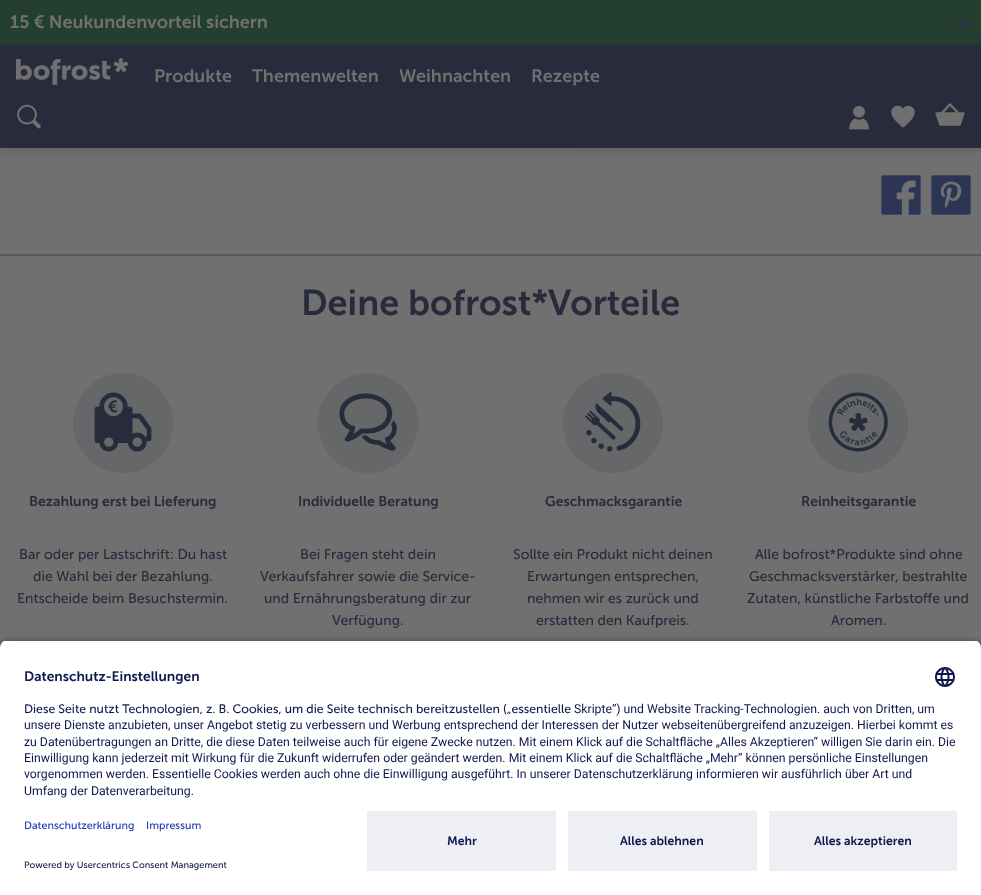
<?xml version="1.0" encoding="UTF-8"?>
<svg xmlns="http://www.w3.org/2000/svg" xmlns:xlink="http://www.w3.org/1999/xlink" width="981" height="895">
  <defs>
    <clipPath id="clip1"><path d="M 8 640 h 965 c 4.5 0 8 3.5 8 8 v 155 h -981 v -155 c 0 -4.5 3.5 -8 8 -8 z" /></clipPath>
  </defs>
  <rect width="100%" height="100%" fill="#707070" />
  <rect width="981" height="45" fill="#243e30" />
  <image x="955" y="19" width="16" height="9" xlink:href="image1.png" />
  <rect x="582" y="148" width="389" height="7" fill="#6d6d6e" />
  <rect y="47" width="981" height="103" fill="#242424" fill-opacity="0.2" filter="blur(5px)" />
  <rect y="45" width="981" height="103" fill="#282b3b" />
  <image x="16" y="58" width="112" height="27" xlink:href="image2.png" />
  <image x="17" y="104" width="24" height="25" xlink:href="image3.png" />
  <image x="849" y="105" width="20" height="25" xlink:href="image4.png" />
  <image x="891" y="105" width="24" height="23" xlink:href="image5.png" />
  <image x="935" y="103" width="30" height="23" xlink:href="image6.png" />
  <image x="881" y="175" width="40" height="40" xlink:href="image7.png" />
  <image x="931" y="175" width="40" height="40" xlink:href="image8.png" />
  <rect y="254" width="981" height="2" fill="#57595b" />
  <circle cx="123" cy="423" r="50" fill="#656768" />
  <image x="94" y="392" width="58" height="60" xlink:href="image9.png" />
  <circle cx="368" cy="423" r="50" fill="#656768" />
  <image x="339" y="393" width="58" height="58" xlink:href="image10.png" />
  <circle cx="613" cy="423" r="50" fill="#656768" />
  <image x="585" y="391" width="56" height="61" xlink:href="image11.png" />
  <circle cx="858" cy="423" r="50" fill="#656768" />
  <image x="828" y="392" width="60" height="60" xlink:href="image12.png" />
  <rect y="643" width="981" height="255" rx="8" fill="#000000" fill-opacity="0.8" filter="blur(3.5px)" />
  <g clip-path="url(#clip1)">
    <rect y="641" width="981" height="162" fill="#ffffff" />
  </g>
  <image x="935" y="667" width="20" height="20" xlink:href="image13.png" />
  <rect y="803" width="981" height="92" fill="#ffffff" />
  <rect x="367" y="811" width="189" height="60" fill="#eeeef5" />
  <rect x="568" y="811" width="189" height="60" fill="#eeeef5" />
  <rect x="769" y="811" width="188" height="60" fill="#eeeef5" />
  <text x="10" y="28" style="font-family: Museo Sans; font-size: 18px; font-weight: 600; fill: #707070">15 € Neukundenvorteil sichern</text>
  <text x="154" y="82" style="font-family: Museo Sans; font-size: 18px; font-weight: 600; fill: #707070">Produkte</text>
  <text x="252" y="82" style="font-family: Museo Sans; font-size: 18px; font-weight: 600; fill: #707070">Themenwelten</text>
  <text x="399" y="82" style="font-family: Museo Sans; font-size: 18px; font-weight: 600; fill: #707070">Weihnachten</text>
  <text x="531" y="82" style="font-family: Museo Sans; font-size: 18px; font-weight: 600; fill: #707070">Rezepte</text>
  <text x="301" y="315" style="font-family: Museo Sans; font-size: 36px; font-weight: 600; fill: #282b3b">Deine bofrost*Vorteile</text>
  <text x="29" y="506" style="font-family: Museo Sans; font-size: 14px; font-weight: 600; fill: #282b3b">Bezahlung erst bei Lieferung</text>
  <text x="19" y="559" style="font-family: Museo Sans; font-size: 14px; fill: #282b3b">Bar oder per Lastschrift: Du hast</text>
  <text x="33" y="581" style="font-family: Museo Sans; font-size: 14px; fill: #282b3b">die Wahl bei der Bezahlung.</text>
  <text x="17" y="603" style="font-family: Museo Sans; font-size: 14px; fill: #282b3b">Entscheide beim Besuchstermin.</text>
  <text x="298" y="506" style="font-family: Museo Sans; font-size: 14px; font-weight: 600; fill: #282b3b">Individuelle Beratung</text>
  <text x="300" y="559" style="font-family: Museo Sans; font-size: 14px; fill: #282b3b">Bei Fragen steht dein</text>
  <text x="260" y="581" style="font-family: Museo Sans; font-size: 14px; fill: #282b3b">Verkaufsfahrer sowie die Service-</text>
  <text x="264" y="603" style="font-family: Museo Sans; font-size: 14px; fill: #282b3b">und Ernährungsberatung dir zur</text>
  <text x="332" y="625" style="font-family: Museo Sans; font-size: 14px; fill: #282b3b">Verfügung.</text>
  <text x="545" y="506" style="font-family: Museo Sans; font-size: 14px; font-weight: 600; fill: #282b3b">Geschmacksgarantie</text>
  <text x="513" y="559" style="font-family: Museo Sans; font-size: 14px; fill: #282b3b">Sollte ein Produkt nicht deinen</text>
  <text x="527" y="581" style="font-family: Museo Sans; font-size: 14px; fill: #282b3b">Erwartungen entsprechen,</text>
  <text x="527" y="603" style="font-family: Museo Sans; font-size: 14px; fill: #282b3b">nehmen wir es zurück und</text>
  <text x="536" y="625" style="font-family: Museo Sans; font-size: 14px; fill: #282b3b">erstatten den Kaufpreis.</text>
  <text x="801" y="506" style="font-family: Museo Sans; font-size: 14px; font-weight: 600; fill: #282b3b">Reinheitsgarantie</text>
  <text x="755" y="559" style="font-family: Museo Sans; font-size: 14px; fill: #282b3b">Alle bofrost*Produkte sind ohne</text>
  <text x="749" y="581" style="font-family: Museo Sans; font-size: 14px; fill: #282b3b">Geschmacksverstärker, bestrahlte</text>
  <text x="747" y="603" style="font-family: Museo Sans; font-size: 14px; fill: #282b3b">Zutaten, künstliche Farbstoffe und</text>
  <text x="831" y="625" style="font-family: Museo Sans; font-size: 14px; fill: #282b3b">Aromen.</text>
  <text x="24" y="681" style="font-family: Museo Sans; font-size: 13.75px; font-weight: 600; fill: #0d194d">Datenschutz-Einstellungen</text>
  <text x="24" y="713" style="font-family: Museo Sans; font-size: 12.25px; fill: #0d194d">Diese Seite nutzt Technologien, z. B. Cookies, um die Seite technisch bereitzustellen („essentielle</text>
  <text x="574" y="713" style="font-family: Roboto; font-size: 12.25px; fill: #0d194d">Skripte“) und Website Tracking-Technologien. auch von Dritten, um</text>
  <text x="24" y="729" style="font-family: Roboto; font-size: 12.25px; fill: #0d194d">unsere Dienste anzubieten, unser Angebot stetig zu verbessern und Werbung entsprechend der Interessen der Nutzer webseitenübergreifend anzuzeigen. Hierbei kommt es</text>
  <text x="24" y="746" style="font-family: Roboto; font-size: 12.25px; fill: #0d194d">zu Datenübertragungen an Dritte, die diese Daten teilweise auch für eigene Zwecke nutzen. Mit einem Klick auf die Schaltfläche „Alles Akzeptieren“ willigen Sie darin ein. Die</text>
  <text x="24" y="762" style="font-family: Roboto; font-size: 12.25px; fill: #0d194d">Einwilligung kann jederzeit mit Wirkung für die Zukunft widerrufen oder geändert werden. Mit einem Klick auf die Schaltfläche „Mehr“ können persönliche Einstellungen</text>
  <text x="24" y="778" style="font-family: Roboto; font-size: 12.25px; fill: #0d194d">vorgenommen werden. Essentielle Cookies werden auch ohne die Einwilligung ausgeführt. In unserer Datenschutzerklärung informieren wir ausführlich über Art und</text>
  <text x="24" y="795" style="font-family: Roboto; font-size: 12.25px; fill: #0d194d">Umfang der Datenverarbeitung.</text>
  <text x="24" y="829" style="font-family: Museo Sans; font-size: 10.75px; fill: #1f39ab">Datenschutzerklärung</text>
  <text x="146" y="829" style="font-family: Museo Sans; font-size: 10.75px; fill: #1f39ab">Impressum</text>
  <text x="24" y="868" style="font-family: Museo Sans; font-size: 9.2px; fill: #0d194d">Powered by Usercentrics Consent Management</text>
  <text x="447" y="845" style="font-family: Museo Sans; font-size: 12.25px; font-weight: 600; fill: #0d194d">Mehr</text>
  <text x="620" y="845" style="font-family: Museo Sans; font-size: 12.25px; font-weight: 600; fill: #0d194d">Alles ablehnen</text>
  <text x="814" y="845" style="font-family: Museo Sans; font-size: 12.25px; font-weight: 600; fill: #0d194d">Alles akzeptieren</text>
</svg>
